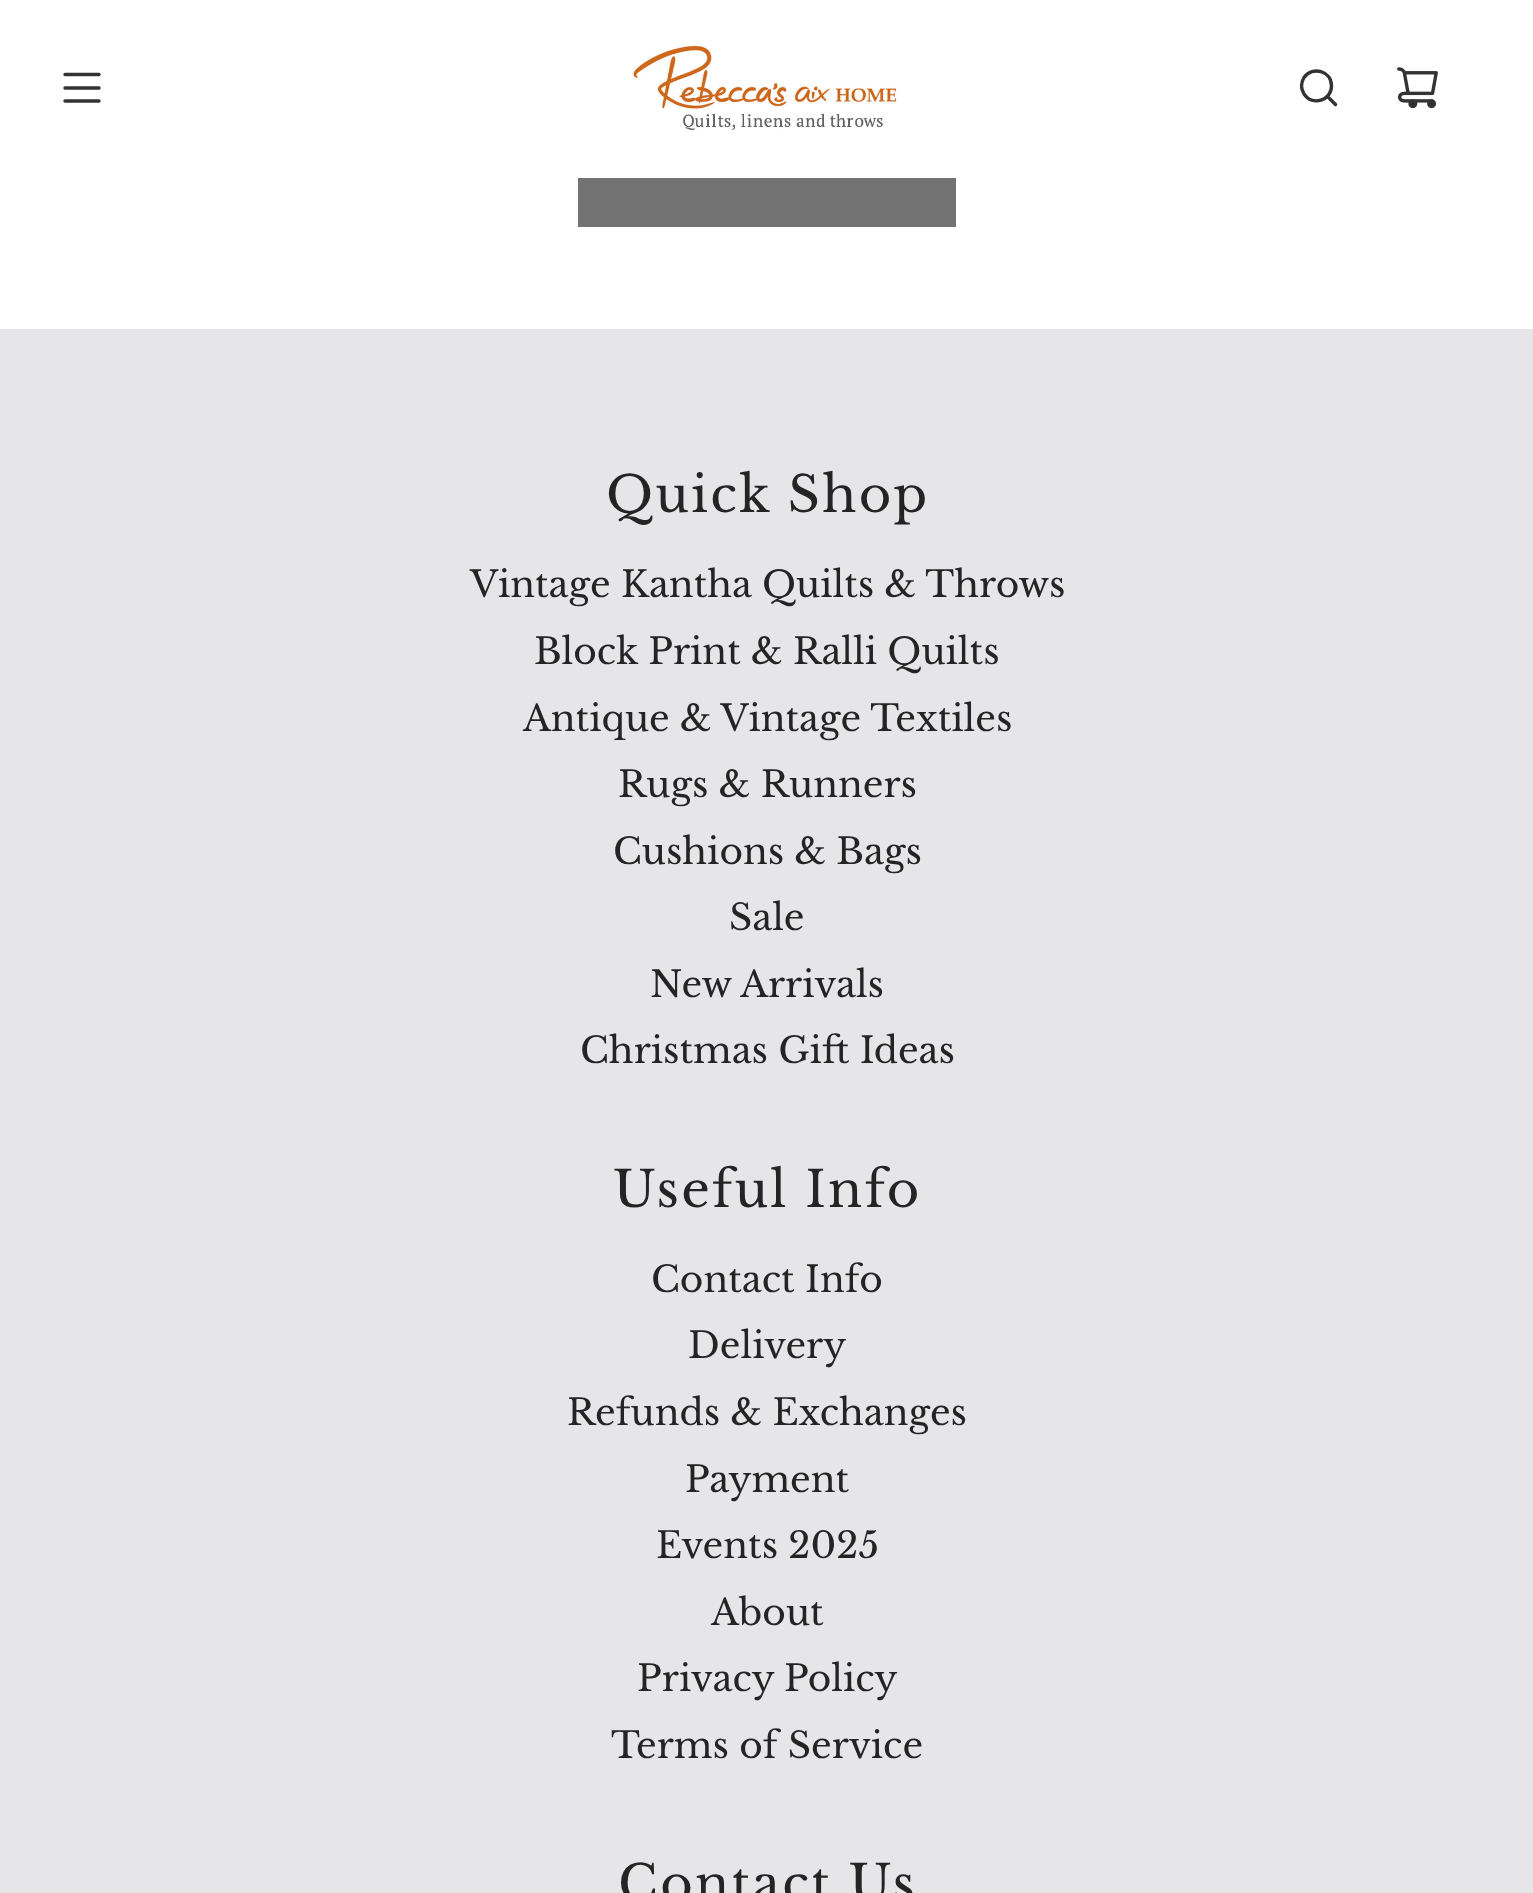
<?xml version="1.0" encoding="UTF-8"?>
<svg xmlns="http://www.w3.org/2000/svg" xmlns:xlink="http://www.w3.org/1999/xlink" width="1533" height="1893">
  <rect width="100%" height="100%" fill="#ffffff" />
  <path d="M 65 74.5 h 34 m -34 13.5 h 34 m -34 13 h 34" fill="none" stroke="#333333" stroke-width="3.4" stroke-linecap="round" stroke-linejoin="round" />
  <image x="632" y="45" width="268" height="86" xlink:href="image1.png" />
  <path d="M 1328 97 l 7.5 7.5 m -34 -18.5 c 0 3 1 5.5 2.5 8 c 8.5 12.5 27.5 6.5 27.5 -8 c 0 -15 -19 -20.5 -27.5 -8.5 c -1.5 2.5 -2.5 5.5 -2.5 8.5 z" fill="none" stroke="#333333" stroke-width="3.4" stroke-linecap="round" stroke-linejoin="round" />
  <image x="1397" y="67" width="41" height="42" xlink:href="image2.png" />
  <rect x="578" y="178" width="378" height="49" fill="#737373" />
  <rect y="329" width="1533" height="1564" fill="#e6e5e7" />
  <text x="606" y="512" style="font-family: Libre Baskerville; font-size: 49.75px; letter-spacing: 2.25px; fill: #242424">Quick Shop</text>
  <text x="470" y="597" style="font-family: Libre Baskerville; font-size: 36px; fill: #242424">Vintage Kantha Quilts &amp; Throws</text>
  <text x="534" y="664" style="font-family: Libre Baskerville; font-size: 36px; fill: #242424">Block Print &amp; Ralli Quilts</text>
  <text x="523" y="731" style="font-family: Libre Baskerville; font-size: 36px; fill: #242424">Antique &amp; Vintage Textiles</text>
  <text x="618" y="797" style="font-family: Libre Baskerville; font-size: 36px; fill: #242424">Rugs &amp; Runners</text>
  <text x="613" y="864" style="font-family: Libre Baskerville; font-size: 36px; fill: #242424">Cushions &amp; Bags</text>
  <text x="729" y="930" style="font-family: Libre Baskerville; font-size: 36px; fill: #242424">Sale</text>
  <text x="650" y="997" style="font-family: Libre Baskerville; font-size: 36px; fill: #242424">New Arrivals</text>
  <text x="580" y="1063" style="font-family: Libre Baskerville; font-size: 36px; fill: #242424">Christmas Gift Ideas</text>
  <text x="613" y="1207" style="font-family: Libre Baskerville; font-size: 49.75px; letter-spacing: 2.25px; fill: #242424">Useful Info</text>
  <text x="651" y="1292" style="font-family: Libre Baskerville; font-size: 36px; fill: #242424">Contact Info</text>
  <text x="688" y="1358" style="font-family: Libre Baskerville; font-size: 36px; fill: #242424">Delivery</text>
  <text x="567" y="1425" style="font-family: Libre Baskerville; font-size: 36px; fill: #242424">Refunds &amp; Exchanges</text>
  <text x="685" y="1492" style="font-family: Libre Baskerville; font-size: 36px; fill: #242424">Payment</text>
  <text x="656" y="1558" style="font-family: Libre Baskerville; font-size: 36px; fill: #242424">Events 2025</text>
  <text x="711" y="1625" style="font-family: Libre Baskerville; font-size: 36px; fill: #242424">About</text>
  <text x="637" y="1691" style="font-family: Libre Baskerville; font-size: 36px; fill: #242424">Privacy Policy</text>
  <text x="611" y="1758" style="font-family: Libre Baskerville; font-size: 36px; fill: #242424">Terms of Service</text>
  <text x="618" y="1901" style="font-family: Libre Baskerville; font-size: 49.75px; letter-spacing: 2.25px; fill: #242424">Contact Us</text>
</svg>
